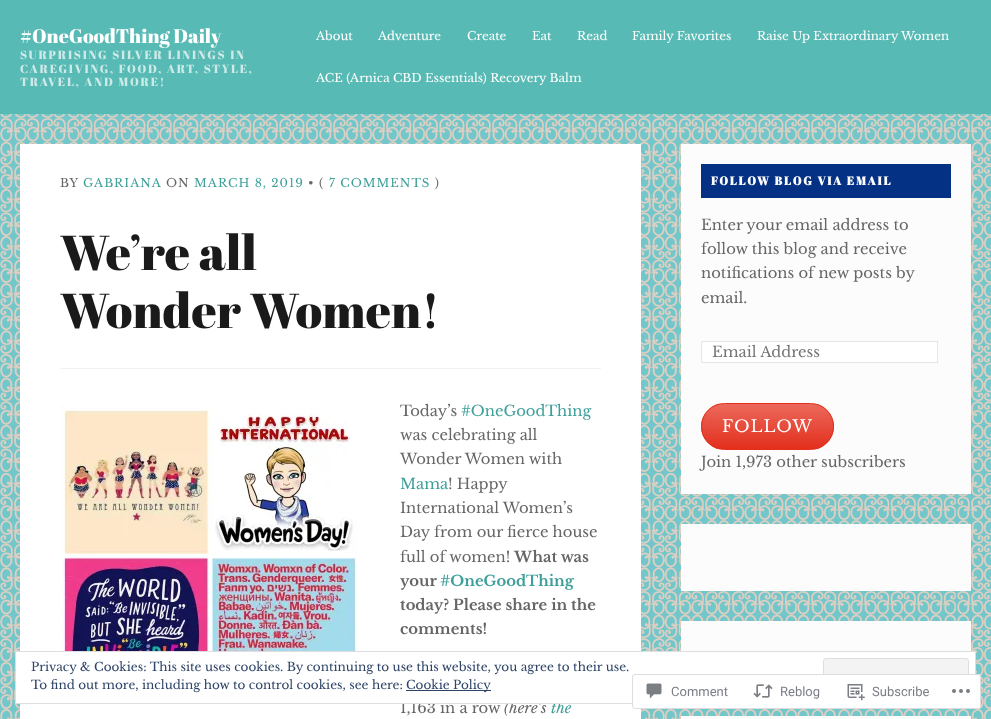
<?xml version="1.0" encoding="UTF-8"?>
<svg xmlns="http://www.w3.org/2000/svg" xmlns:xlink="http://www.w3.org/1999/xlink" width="991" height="719">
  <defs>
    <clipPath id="clip1"><rect x="701" y="403" width="133" height="47" rx="23.5" /></clipPath>
    <linearGradient id="g1" gradientUnits="userSpaceOnUse" x1="768" y1="404" x2="768" y2="449"><stop offset="0" stop-color="#eb695c" /><stop offset="1" stop-color="#e32f1c" /></linearGradient>
  </defs>
  <rect width="100%" height="100%" fill="#ffffff" />
  <image x="0" y="114" width="991" height="605" xlink:href="image1.png" />
  <rect width="991" height="114" fill="#58bab4" />
  <rect x="20" y="144" width="621" height="575" fill="#ffffff" />
  <rect x="60" y="368" width="541" height="1" fill="#f2f2f2" />
  <image x="60" y="406" width="297" height="245" xlink:href="image2.png" />
  <rect x="681" y="144" width="290" height="350" fill="#fcfcfc" />
  <rect x="701" y="164" width="250" height="34" fill="#043184" />
  <rect x="701.5" y="341.5" width="236" height="21" fill="#ffffff" stroke="#e6e6e6" />
  <g clip-path="url(#clip1)">
    <rect x="701" y="404" width="133" height="45" fill="url(#g1)" />
  </g>
  <rect x="701.5" y="403.5" width="132" height="46" rx="23" fill="none" stroke="#e32f1c" />
  <rect x="681" y="524" width="290" height="67" fill="#fcfcfc" />
  <rect x="681" y="621" width="290" height="30" fill="#fcfcfc" />
  <rect x="681" y="716" width="290" height="3" fill="#fcfcfc" />
  <text x="20" y="43" style="font-family: Abril Fatface; font-size: 19.6px; fill: #ffffff">#OneGoodThing Daily</text>
  <text x="20" y="59" style="font-family: Abril Fatface; font-size: 11.75px; letter-spacing: 1.75px; fill: #cdeae9">SURPRISING SILVER LININGS IN</text>
  <text x="20" y="73" style="font-family: Abril Fatface; font-size: 11.75px; letter-spacing: 1.75px; fill: #cdeae9">CAREGIVING, FOOD, ART, STYLE,</text>
  <text x="20" y="86" style="font-family: Abril Fatface; font-size: 11.75px; letter-spacing: 1.75px; fill: #cdeae9">TRAVEL, AND MORE!</text>
  <text x="316" y="40" style="font-family: Libre Baskerville; font-size: 11.75px; fill: #ffffff">About</text>
  <text x="378" y="40" style="font-family: Libre Baskerville; font-size: 11.75px; fill: #ffffff">Adventure</text>
  <text x="467" y="40" style="font-family: Libre Baskerville; font-size: 11.75px; fill: #ffffff">Create</text>
  <text x="532" y="40" style="font-family: Libre Baskerville; font-size: 11.75px; fill: #ffffff">Eat</text>
  <text x="577" y="40" style="font-family: Libre Baskerville; font-size: 11.75px; fill: #ffffff">Read</text>
  <text x="632" y="40" style="font-family: Libre Baskerville; font-size: 11.75px; fill: #ffffff">Family Favorites</text>
  <text x="757" y="40" style="font-family: Libre Baskerville; font-size: 11.75px; fill: #ffffff">Raise Up Extraordinary Women</text>
  <text x="316" y="82" style="font-family: Libre Baskerville; font-size: 11.75px; fill: #ffffff">ACE (Arnica CBD Essentials) Recovery Balm</text>
  <text x="60" y="187" style="font-family: Libre Baskerville; font-size: 11.75px; letter-spacing: 1px; fill: #666666">BY</text>
  <text x="83" y="187" style="font-family: Libre Baskerville; font-size: 11.75px; letter-spacing: 1px; fill: #3fa09a">GABRIANA</text>
  <text x="166" y="187" style="font-family: Libre Baskerville; font-size: 11.75px; letter-spacing: 1px; fill: #666666">ON</text>
  <text x="194" y="187" style="font-family: Libre Baskerville; font-size: 11.75px; letter-spacing: 1px; fill: #3fa09a">MARCH 8, 2019</text>
  <text x="308" y="187" style="font-family: Libre Baskerville; font-size: 11.75px; letter-spacing: 1px; fill: #666666">• (</text>
  <text x="329" y="187" style="font-family: Libre Baskerville; font-size: 11.75px; letter-spacing: 1px; fill: #3fa09a">7 COMMENTS</text>
  <text x="435" y="187" style="font-family: Libre Baskerville; font-size: 11.75px; letter-spacing: 1px; fill: #666666">)</text>
  <text x="60" y="270" style="font-family: Abril Fatface; font-size: 49px; fill: #1a1a1a">We’re all</text>
  <text x="60" y="328" style="font-family: Abril Fatface; font-size: 49px; fill: #1a1a1a">Wonder Women!</text>
  <text x="400" y="416" style="font-family: Libre Baskerville; font-size: 14.75px; fill: #666666">Today’s</text>
  <text x="461" y="416" style="font-family: Libre Baskerville; font-size: 14.75px; fill: #3fa09a">#OneGoodThing</text>
  <text x="400" y="440" style="font-family: Libre Baskerville; font-size: 14.75px; fill: #666666">was celebrating all</text>
  <text x="400" y="464" style="font-family: Libre Baskerville; font-size: 14.75px; fill: #666666">Wonder Women with</text>
  <text x="400" y="489" style="font-family: Libre Baskerville; font-size: 14.75px; fill: #3fa09a">Mama</text>
  <text x="448" y="489" style="font-family: Libre Baskerville; font-size: 14.75px; fill: #666666">! Happy</text>
  <text x="400" y="513" style="font-family: Libre Baskerville; font-size: 14.75px; fill: #666666">International Women’s</text>
  <text x="400" y="537" style="font-family: Libre Baskerville; font-size: 14.75px; fill: #666666">Day from our fierce house</text>
  <text x="400" y="562" style="font-family: Libre Baskerville; font-size: 14.75px; fill: #666666">full of women!</text>
  <text x="514" y="562" style="font-family: Libre Baskerville; font-size: 14.75px; font-weight: bold; fill: #666666">What was</text>
  <text x="400" y="586" style="font-family: Libre Baskerville; font-size: 14.75px; font-weight: bold; fill: #666666">your</text>
  <text x="440" y="586" style="font-family: Libre Baskerville; font-size: 14.75px; font-weight: bold; fill: #3fa09a">#OneGoodThing</text>
  <text x="400" y="610" style="font-family: Libre Baskerville; font-size: 14.75px; font-weight: bold; fill: #666666">today? Please share in the</text>
  <text x="400" y="634" style="font-family: Libre Baskerville; font-size: 14.75px; font-weight: bold; fill: #666666">comments!</text>
  <text x="400" y="713" style="font-family: Libre Baskerville; font-size: 14.75px; fill: #666666">1,163 in a row</text>
  <text x="504" y="713" style="font-family: Libre Baskerville; font-size: 14.75px; font-style: italic; fill: #666666">(here’s</text>
  <text x="551" y="713" style="font-family: Libre Baskerville; font-size: 14.75px; font-style: italic; fill: #3fa09a">the</text>
  <text x="711" y="185" style="font-family: Abril Fatface; font-size: 11.75px; font-weight: bold; letter-spacing: 1.75px; fill: #ffffff">FOLLOW BLOG VIA EMAIL</text>
  <text x="701" y="230" style="font-family: Libre Baskerville; font-size: 14.75px; fill: #666666">Enter your email address to</text>
  <text x="701" y="254" style="font-family: Libre Baskerville; font-size: 14.75px; fill: #666666">follow this blog and receive</text>
  <text x="701" y="278" style="font-family: Libre Baskerville; font-size: 14.75px; fill: #666666">notifications of new posts by</text>
  <text x="701" y="303" style="font-family: Libre Baskerville; font-size: 14.75px; fill: #666666">email.</text>
  <text x="712" y="357" style="font-family: Libre Baskerville; font-size: 14.75px; fill: #757575">Email Address</text>
  <text x="722" y="432" style="font-family: Libre Baskerville; font-size: 16.5px; letter-spacing: 1px; fill: #ffffff">FOLLOW</text>
  <text x="701" y="467" style="font-family: Libre Baskerville; font-size: 14.75px; fill: #666666">Join 1,973 other subscribers</text>
  <rect x="15.5" y="651.5" width="960" height="52" fill="#ffffff" stroke="#dedede" />
  <text x="31" y="671" style="font-family: Libre Baskerville; font-size: 12px; fill: #2e4467">Privacy &amp; Cookies: This site uses cookies. By continuing to use this website, you agree to their use.</text>
  <rect x="823.5" y="658.5" width="145" height="38" rx="2.5" fill="#f3f3f3" stroke="#dedede" />
  <text x="31" y="689" style="font-family: Libre Baskerville; font-size: 12px; fill: #2e4467">To find out more, including how to control cookies, see here:</text>
  <rect x="406" y="690" width="85" height="1" fill="#2e4467" />
  <text x="406" y="689" style="font-family: Libre Baskerville; font-size: 12px; fill: #2e4467">Cookie Policy</text>
  <rect x="632" y="674" width="349" height="35" rx="3" fill="#ffffff" fill-opacity="0.98" />
  <rect x="632.5" y="674.5" width="348" height="34" rx="2.5" fill="none" stroke="#dcdcde" stroke-opacity="0.98" />
  <image x="646" y="683" width="16" height="16" xlink:href="image3.png" />
  <text x="671" y="696" style="font-family: Roboto; font-size: 13px; fill: #7b7f85">Comment</text>
  <image x="753" y="684" width="20" height="14" xlink:href="image4.png" />
  <text x="780" y="696" style="font-family: Roboto; font-size: 13px; fill: #7b7f85">Reblog</text>
  <image x="847" y="684" width="18" height="17" xlink:href="image5.png" />
  <text x="872" y="696" style="font-family: Roboto; font-size: 13px; fill: #7b7f85">Subscribe</text>
  <image x="952" y="689" width="18" height="4" xlink:href="image6.png" />
</svg>
